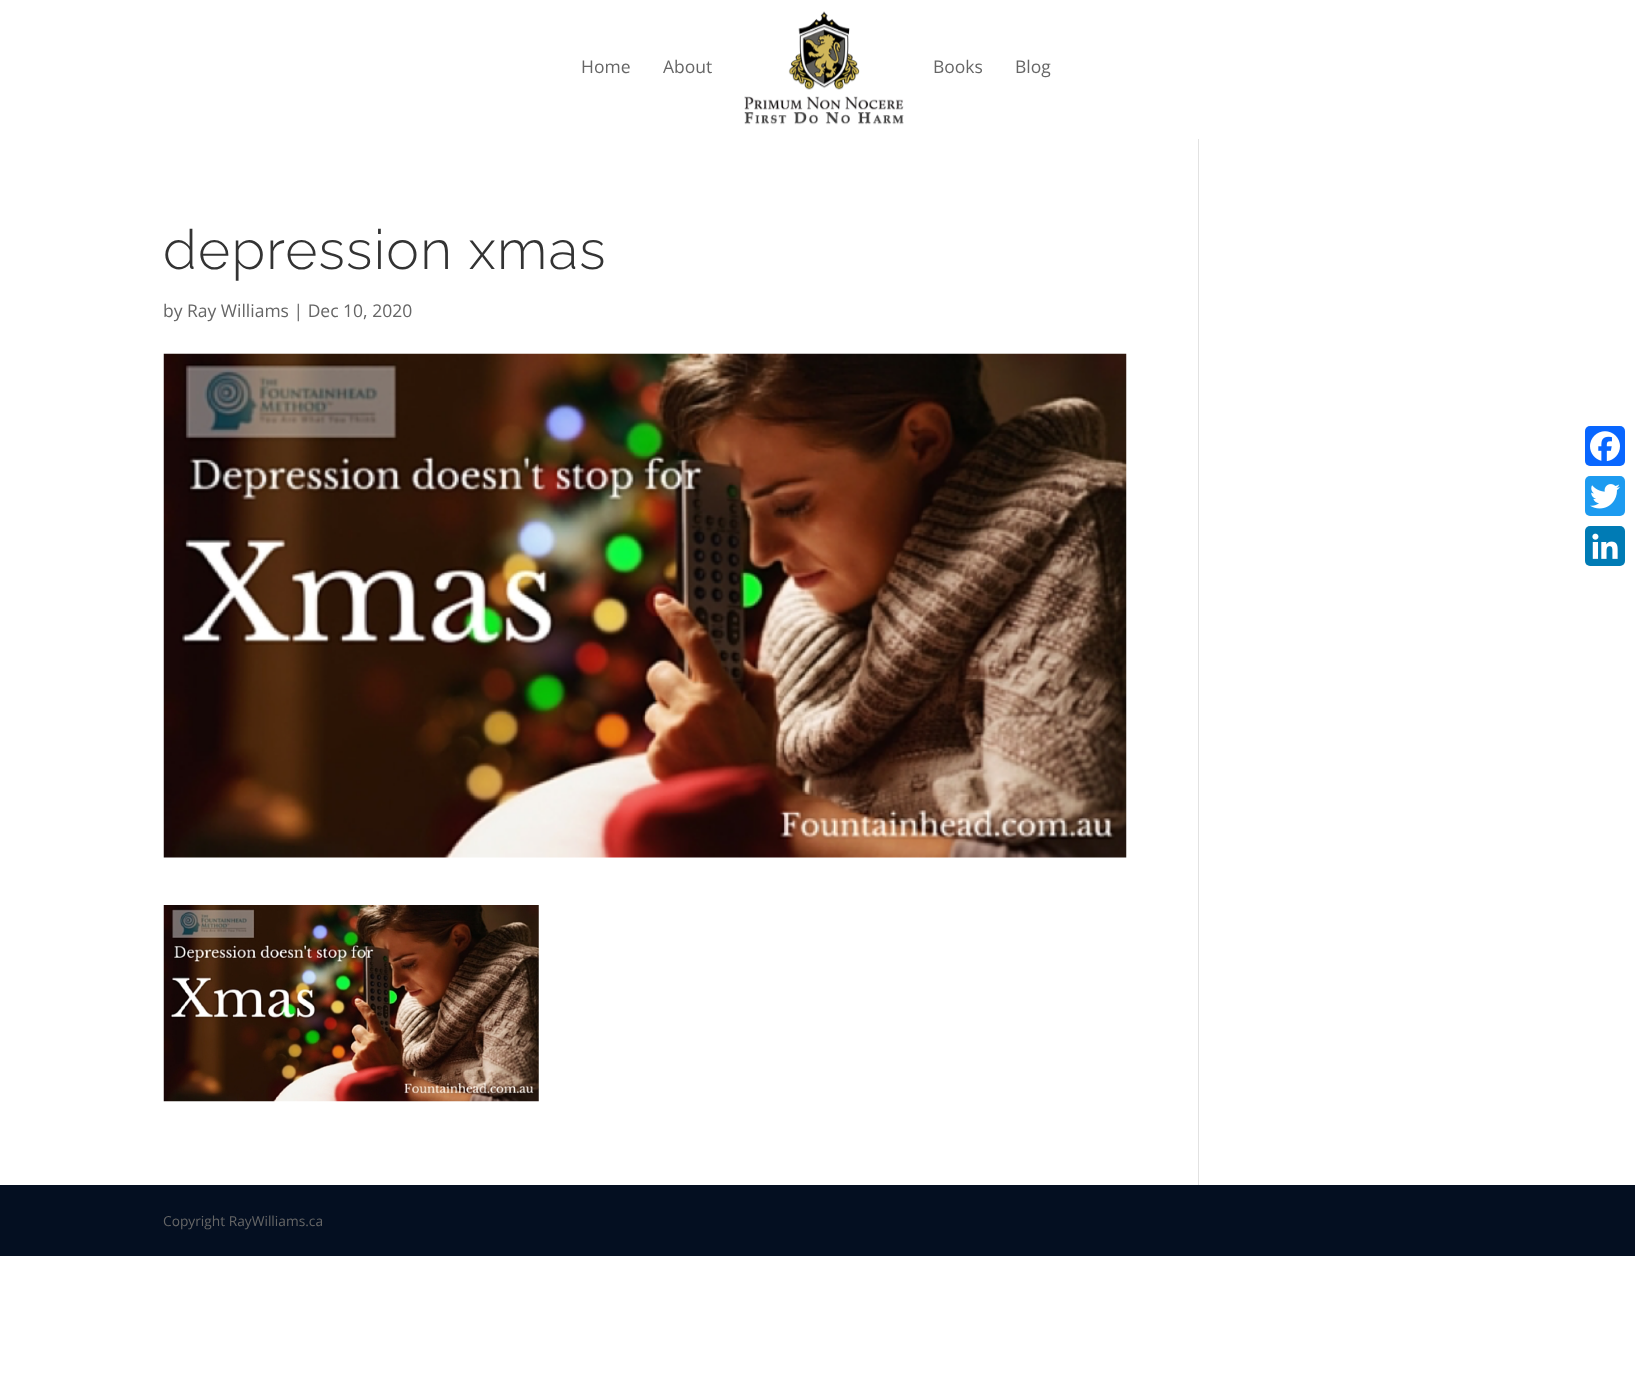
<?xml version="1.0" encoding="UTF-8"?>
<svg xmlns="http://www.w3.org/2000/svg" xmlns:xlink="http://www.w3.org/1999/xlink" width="1635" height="1386">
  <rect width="100%" height="100%" fill="#ffffff" />
  <image x="744" y="11" width="160" height="114" xlink:href="image1.png" />
  <image x="163" y="353" width="964" height="505" xlink:href="image2.png" />
  <image x="163" y="905" width="376" height="197" xlink:href="image3.png" />
  <rect x="1198" y="139" width="1" height="1046" fill="#e2e2e2" />
  <rect y="1185" width="1635" height="71" fill="#040f21" />
  <rect x="1585" y="426" width="40" height="40" rx="5" fill="#0866ff" />
  <image x="1590" y="431" width="30" height="31" xlink:href="image4.png" />
  <rect x="1585" y="476" width="40" height="40" rx="5" fill="#1d9bf0" />
  <image x="1590" y="484" width="30" height="25" xlink:href="image5.png" />
  <rect x="1585" y="526" width="40" height="40" rx="5" fill="#007bb5" />
  <image x="1592" y="533" width="26" height="26" xlink:href="image6.png" />
  <text x="581" y="73" style="font-family: Open Sans; font-size: 17.5px; fill: #666666">Home</text>
  <text x="663" y="73" style="font-family: Open Sans; font-size: 17.5px; fill: #666666">About</text>
  <text x="933" y="73" style="font-family: Open Sans; font-size: 17.5px; fill: #666666">Books</text>
  <text x="1015" y="73" style="font-family: Open Sans; font-size: 17.5px; fill: #666666">Blog</text>
  <text x="163" y="269" style="font-family: Raleway; font-size: 55px; font-weight: 300; letter-spacing: 1.25px; fill: #333333">depression xmas</text>
  <text x="163" y="317" style="font-family: Open Sans; font-size: 17.5px; fill: #666666">by Ray Williams | Dec 10, 2020</text>
  <text x="163" y="1226" style="font-family: Open Sans; font-size: 13.75px; fill: #666666">Copyright RayWilliams.ca</text>
</svg>
